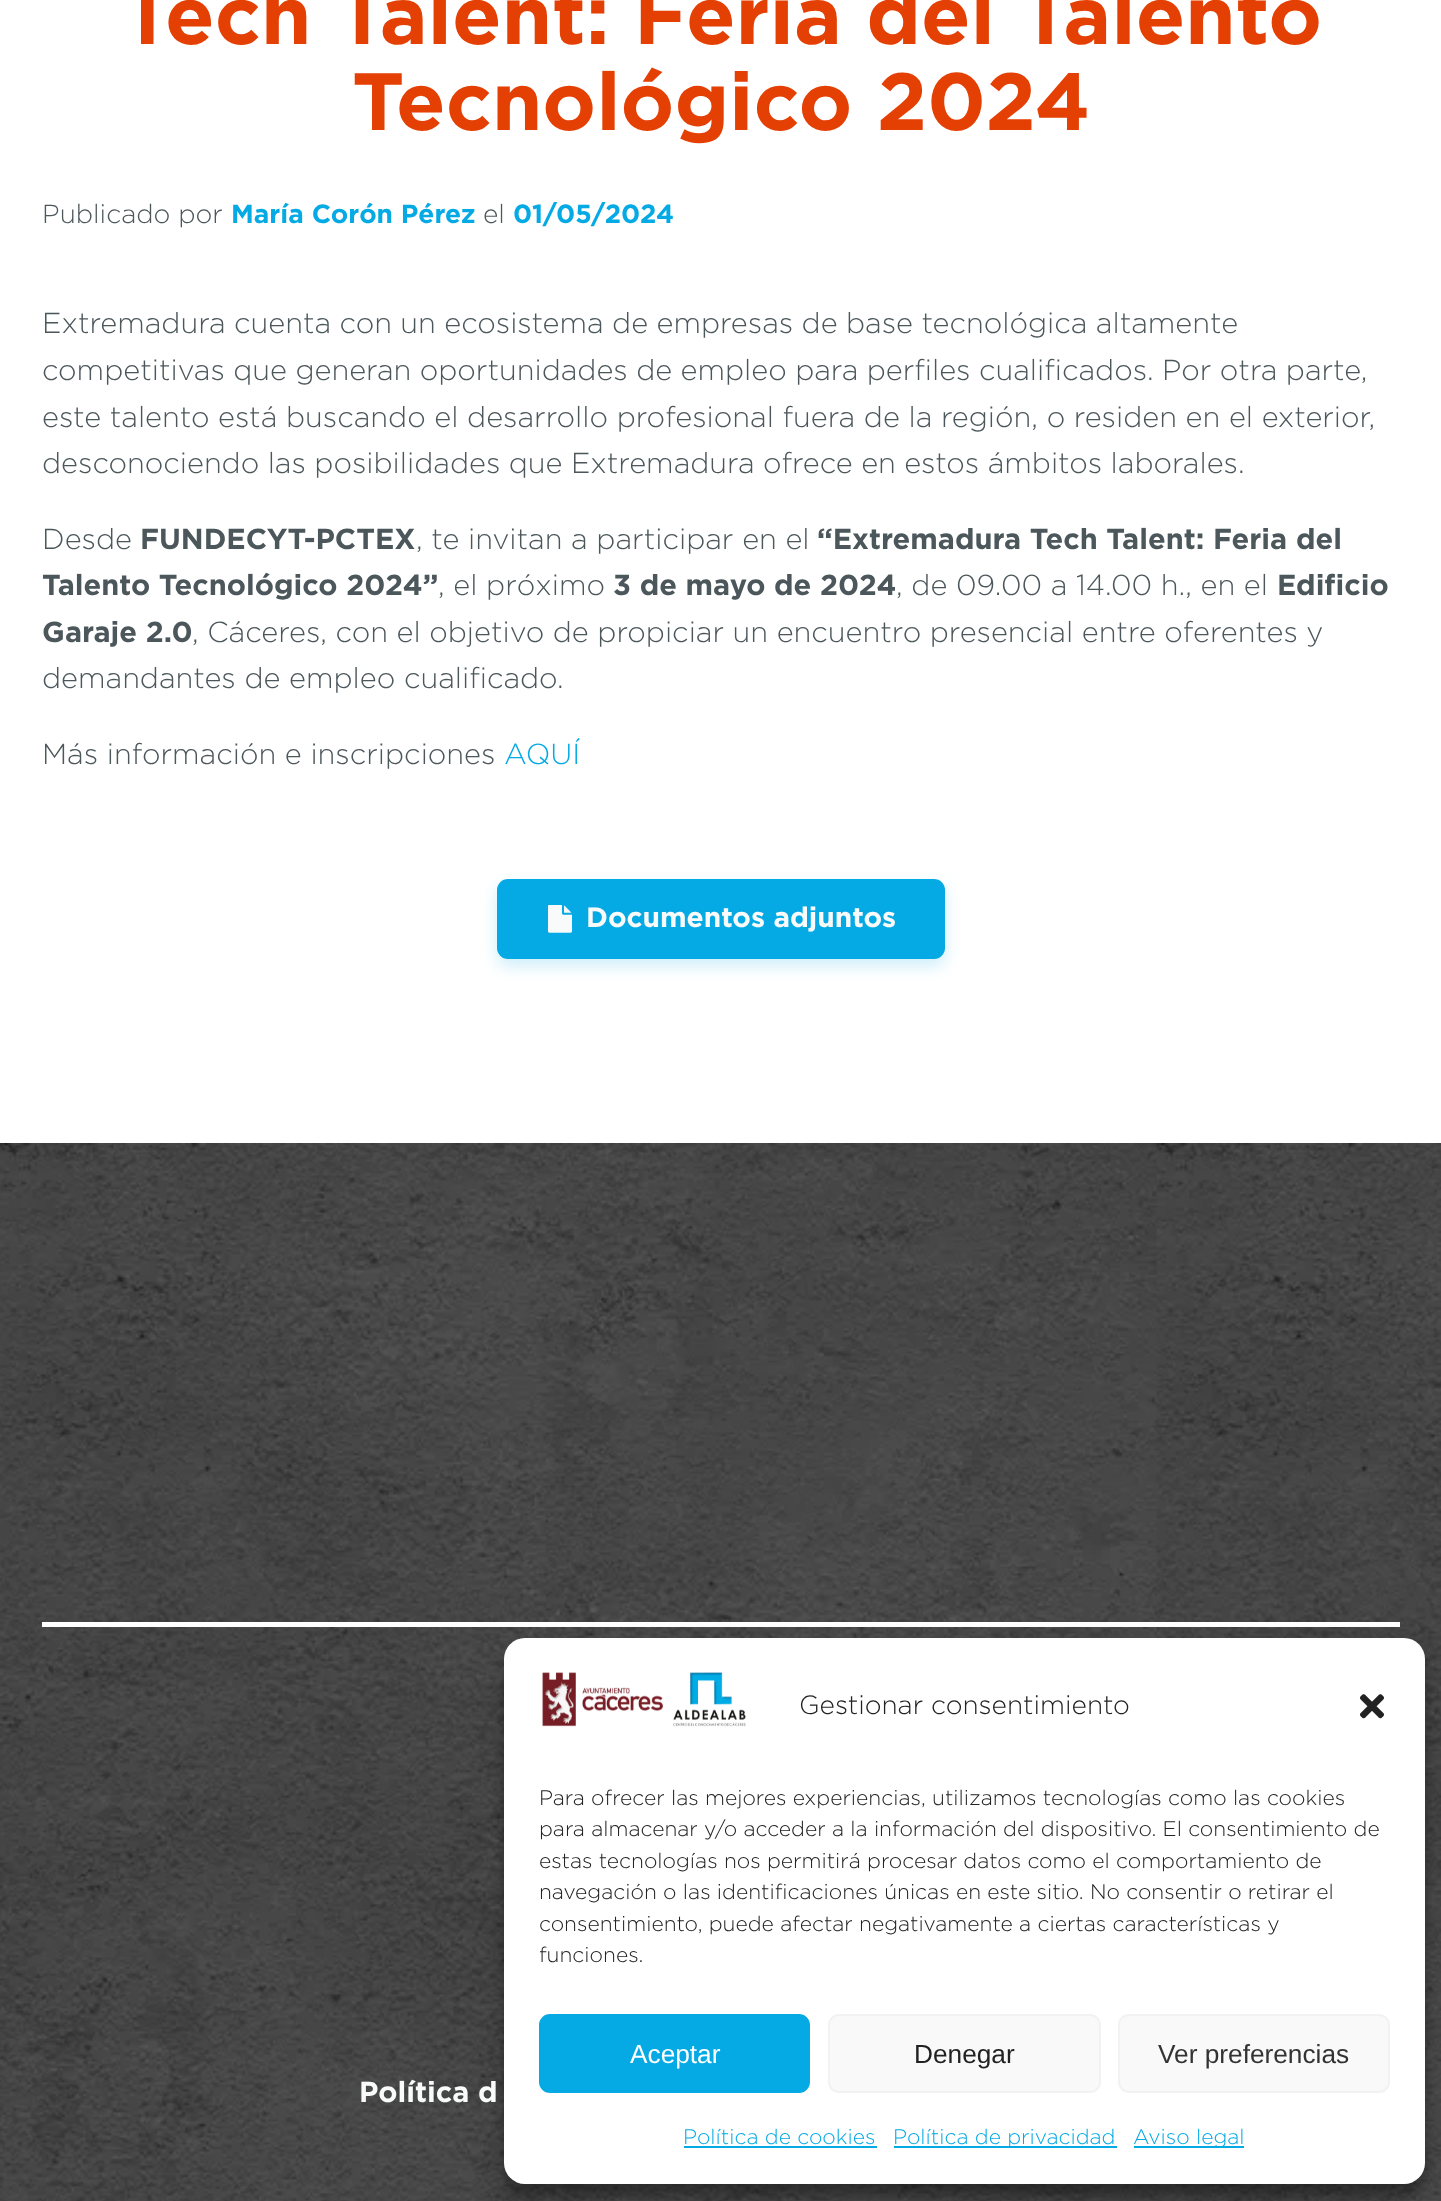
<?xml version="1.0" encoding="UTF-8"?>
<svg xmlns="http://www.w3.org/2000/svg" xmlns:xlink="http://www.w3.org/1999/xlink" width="1441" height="2201">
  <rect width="100%" height="100%" fill="#ffffff" />
  <rect x="497" y="886" width="448" height="80" rx="11" fill="#05aae4" fill-opacity="0.2" filter="blur(8px)" />
  <rect x="497" y="879" width="448" height="80" rx="11" fill="#05aae4" />
  <image x="548" y="905" width="24" height="28" xlink:href="image1.png" />
  <image x="0" y="1143" width="1441" height="1058" xlink:href="image2.png" />
  <rect x="42" y="1622" width="1358" height="5" fill="#ffffff" />
  <rect x="504" y="1649" width="921" height="546" rx="21" fill="#000000" fill-opacity="0.23" filter="blur(5px)" />
  <rect x="504" y="1656" width="921" height="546" rx="21" fill="#000000" fill-opacity="0.19" filter="blur(17.5px)" />
  <rect x="504" y="1638" width="921" height="546" rx="21" fill="#ffffff" />
  <image x="542" y="1672" width="204" height="55" xlink:href="image3.png" />
  <image x="1360" y="1694" width="24" height="25" xlink:href="image4.png" />
  <rect x="540" y="2015" width="269" height="77" rx="10" fill="#05aae4" stroke="#05aae4" stroke-width="2" />
  <rect x="829" y="2015" width="271" height="77" rx="10" fill="#f9f9f9" stroke="#f2f2f2" stroke-width="2" />
  <rect x="1119" y="2015" width="270" height="77" rx="10" fill="#f9f9f9" stroke="#f2f2f2" stroke-width="2" />
  <rect x="684" y="2146" width="193" height="2" fill="#05aae4" />
  <rect x="894" y="2146" width="223" height="2" fill="#05aae4" />
  <rect x="1134" y="2146" width="110" height="2" fill="#05aae4" />
  <text x="121" y="44" style="font-family: Gotham; font-size: 81px; font-weight: bold; fill: #e54004">Tech Talent: Feria del Talento</text>
  <text x="352" y="130" style="font-family: Gotham; font-size: 81px; font-weight: bold; fill: #e54004">Tecnológico 2024</text>
  <text x="42" y="223" style="font-family: Gotham; font-size: 26.25px; font-weight: 300; fill: #4c575b">Publicado por</text>
  <text x="231" y="223" style="font-family: Gotham; font-size: 26.25px; font-weight: bold; fill: #05aae4">María Corón Pérez</text>
  <text x="483" y="223" style="font-family: Gotham; font-size: 26.25px; font-weight: 300; fill: #4c575b">el</text>
  <text x="513" y="223" style="font-family: Gotham; font-size: 26.25px; font-weight: bold; fill: #05aae4">01/05/2024</text>
  <text x="42" y="333" word-spacing="-0.25" style="font-family: Gotham; font-size: 28.95px; font-weight: 300; fill: #4c575b">Extremadura cuenta con un ecosistema de empresas de base tecnológica altamente</text>
  <text x="42" y="380" word-spacing="-0.25" style="font-family: Gotham; font-size: 28.95px; font-weight: 300; fill: #4c575b">competitivas que generan oportunidades de empleo para perfiles cualificados. Por otra parte,</text>
  <text x="42" y="427" style="font-family: Gotham; font-size: 28.95px; font-weight: 300; fill: #4c575b">este talento está buscando el desarrollo profesional fuera de la región, o residen en el exterior,</text>
  <text x="42" y="473" word-spacing="-0.25" style="font-family: Gotham; font-size: 28.95px; font-weight: 300; fill: #4c575b">desconociendo las posibilidades que Extremadura ofrece en estos ámbitos laborales.</text>
  <text x="42" y="549" style="font-family: Gotham; font-size: 28.95px; font-weight: 300; fill: #4c575b">Desde</text>
  <text x="140" y="549" style="font-family: Gotham; font-size: 28.95px; font-weight: bold; fill: #4c575b">FUNDECYT-PCTEX</text>
  <text x="416" y="549" style="font-family: Gotham; font-size: 28.95px; font-weight: 300; fill: #4c575b">, te invitan a participar en el</text>
  <text x="817" y="549" style="font-family: Gotham; font-size: 28.95px; font-weight: bold; fill: #4c575b">“Extremadura Tech Talent: Feria del</text>
  <text x="42" y="595" style="font-family: Gotham; font-size: 28.95px; font-weight: bold; fill: #4c575b">Talento Tecnológico 2024”</text>
  <text x="438" y="595" style="font-family: Gotham; font-size: 28.95px; font-weight: 300; fill: #4c575b">, el próximo</text>
  <text x="613" y="595" style="font-family: Gotham; font-size: 28.95px; font-weight: bold; fill: #4c575b">3 de mayo de 2024</text>
  <text x="896" y="595" style="font-family: Gotham; font-size: 28.95px; font-weight: 300; fill: #4c575b">, de 09.00 a 14.00 h., en el</text>
  <text x="1277" y="595" style="font-family: Gotham; font-size: 28.95px; font-weight: bold; fill: #4c575b">Edificio</text>
  <text x="42" y="642" style="font-family: Gotham; font-size: 28.95px; font-weight: bold; fill: #4c575b">Garaje 2.0</text>
  <text x="192" y="642" word-spacing="-0.1" style="font-family: Gotham; font-size: 28.95px; font-weight: 300; fill: #4c575b">, Cáceres, con el objetivo de propiciar un encuentro presencial entre oferentes y</text>
  <text x="42" y="688" style="font-family: Gotham; font-size: 28.95px; font-weight: 300; fill: #4c575b">demandantes de empleo cualificado.</text>
  <text x="42" y="764" style="font-family: Gotham; font-size: 28.95px; font-weight: 300; fill: #4c575b">Más información e inscripciones</text>
  <text x="504" y="764" style="font-family: Gotham; font-size: 28.95px; font-weight: 300; fill: #05aae4">AQUÍ</text>
  <text x="586" y="927" style="font-family: Gotham; font-size: 28px; font-weight: bold; fill: #f9fafa">Documentos adjuntos</text>
  <text x="359" y="2102" style="font-family: Gotham; font-size: 28.95px; font-weight: bold; fill: #f9fafa">Política d</text>
  <text x="799" y="1714" style="font-family: Gotham; font-size: 26.25px; font-weight: 300; fill: #222222">Gestionar consentimiento</text>
  <text x="539" y="1805" style="font-family: Gotham; font-size: 21px; font-weight: 300; fill: #222222">Para ofrecer las mejores experiencias, utilizamos tecnologías como las cookies</text>
  <text x="539" y="1836" style="font-family: Gotham; font-size: 21px; font-weight: 300; fill: #222222">para almacenar y/o acceder a la información del dispositivo. El consentimiento de</text>
  <text x="539" y="1868" style="font-family: Gotham; font-size: 21px; font-weight: 300; fill: #222222">estas tecnologías nos permitirá procesar datos como el comportamiento de</text>
  <text x="539" y="1899" style="font-family: Gotham; font-size: 21px; font-weight: 300; fill: #222222">navegación o las identificaciones únicas en este sitio. No consentir o retirar el</text>
  <text x="539" y="1931" style="font-family: Gotham; font-size: 21px; font-weight: 300; fill: #222222">consentimiento, puede afectar negativamente a ciertas características y</text>
  <text x="539" y="1962" style="font-family: Gotham; font-size: 21px; font-weight: 300; fill: #222222">funciones.</text>
  <text x="630" y="2063" style="font-family: Liberation Sans; font-size: 26.25px; fill: #ffffff">Aceptar</text>
  <text x="914" y="2063" style="font-family: Liberation Sans; font-size: 26.25px; fill: #222222">Denegar</text>
  <text x="1158" y="2063" style="font-family: Liberation Sans; font-size: 26.25px; fill: #333333">Ver preferencias</text>
  <text x="683" y="2144" style="font-family: Gotham; font-size: 21px; font-weight: 300; fill: #05aae4">Política de cookies</text>
  <text x="893" y="2144" style="font-family: Gotham; font-size: 21px; font-weight: 300; fill: #05aae4">Política de privacidad</text>
  <text x="1133" y="2144" style="font-family: Gotham; font-size: 21px; font-weight: 300; fill: #05aae4">Aviso legal</text>
</svg>
